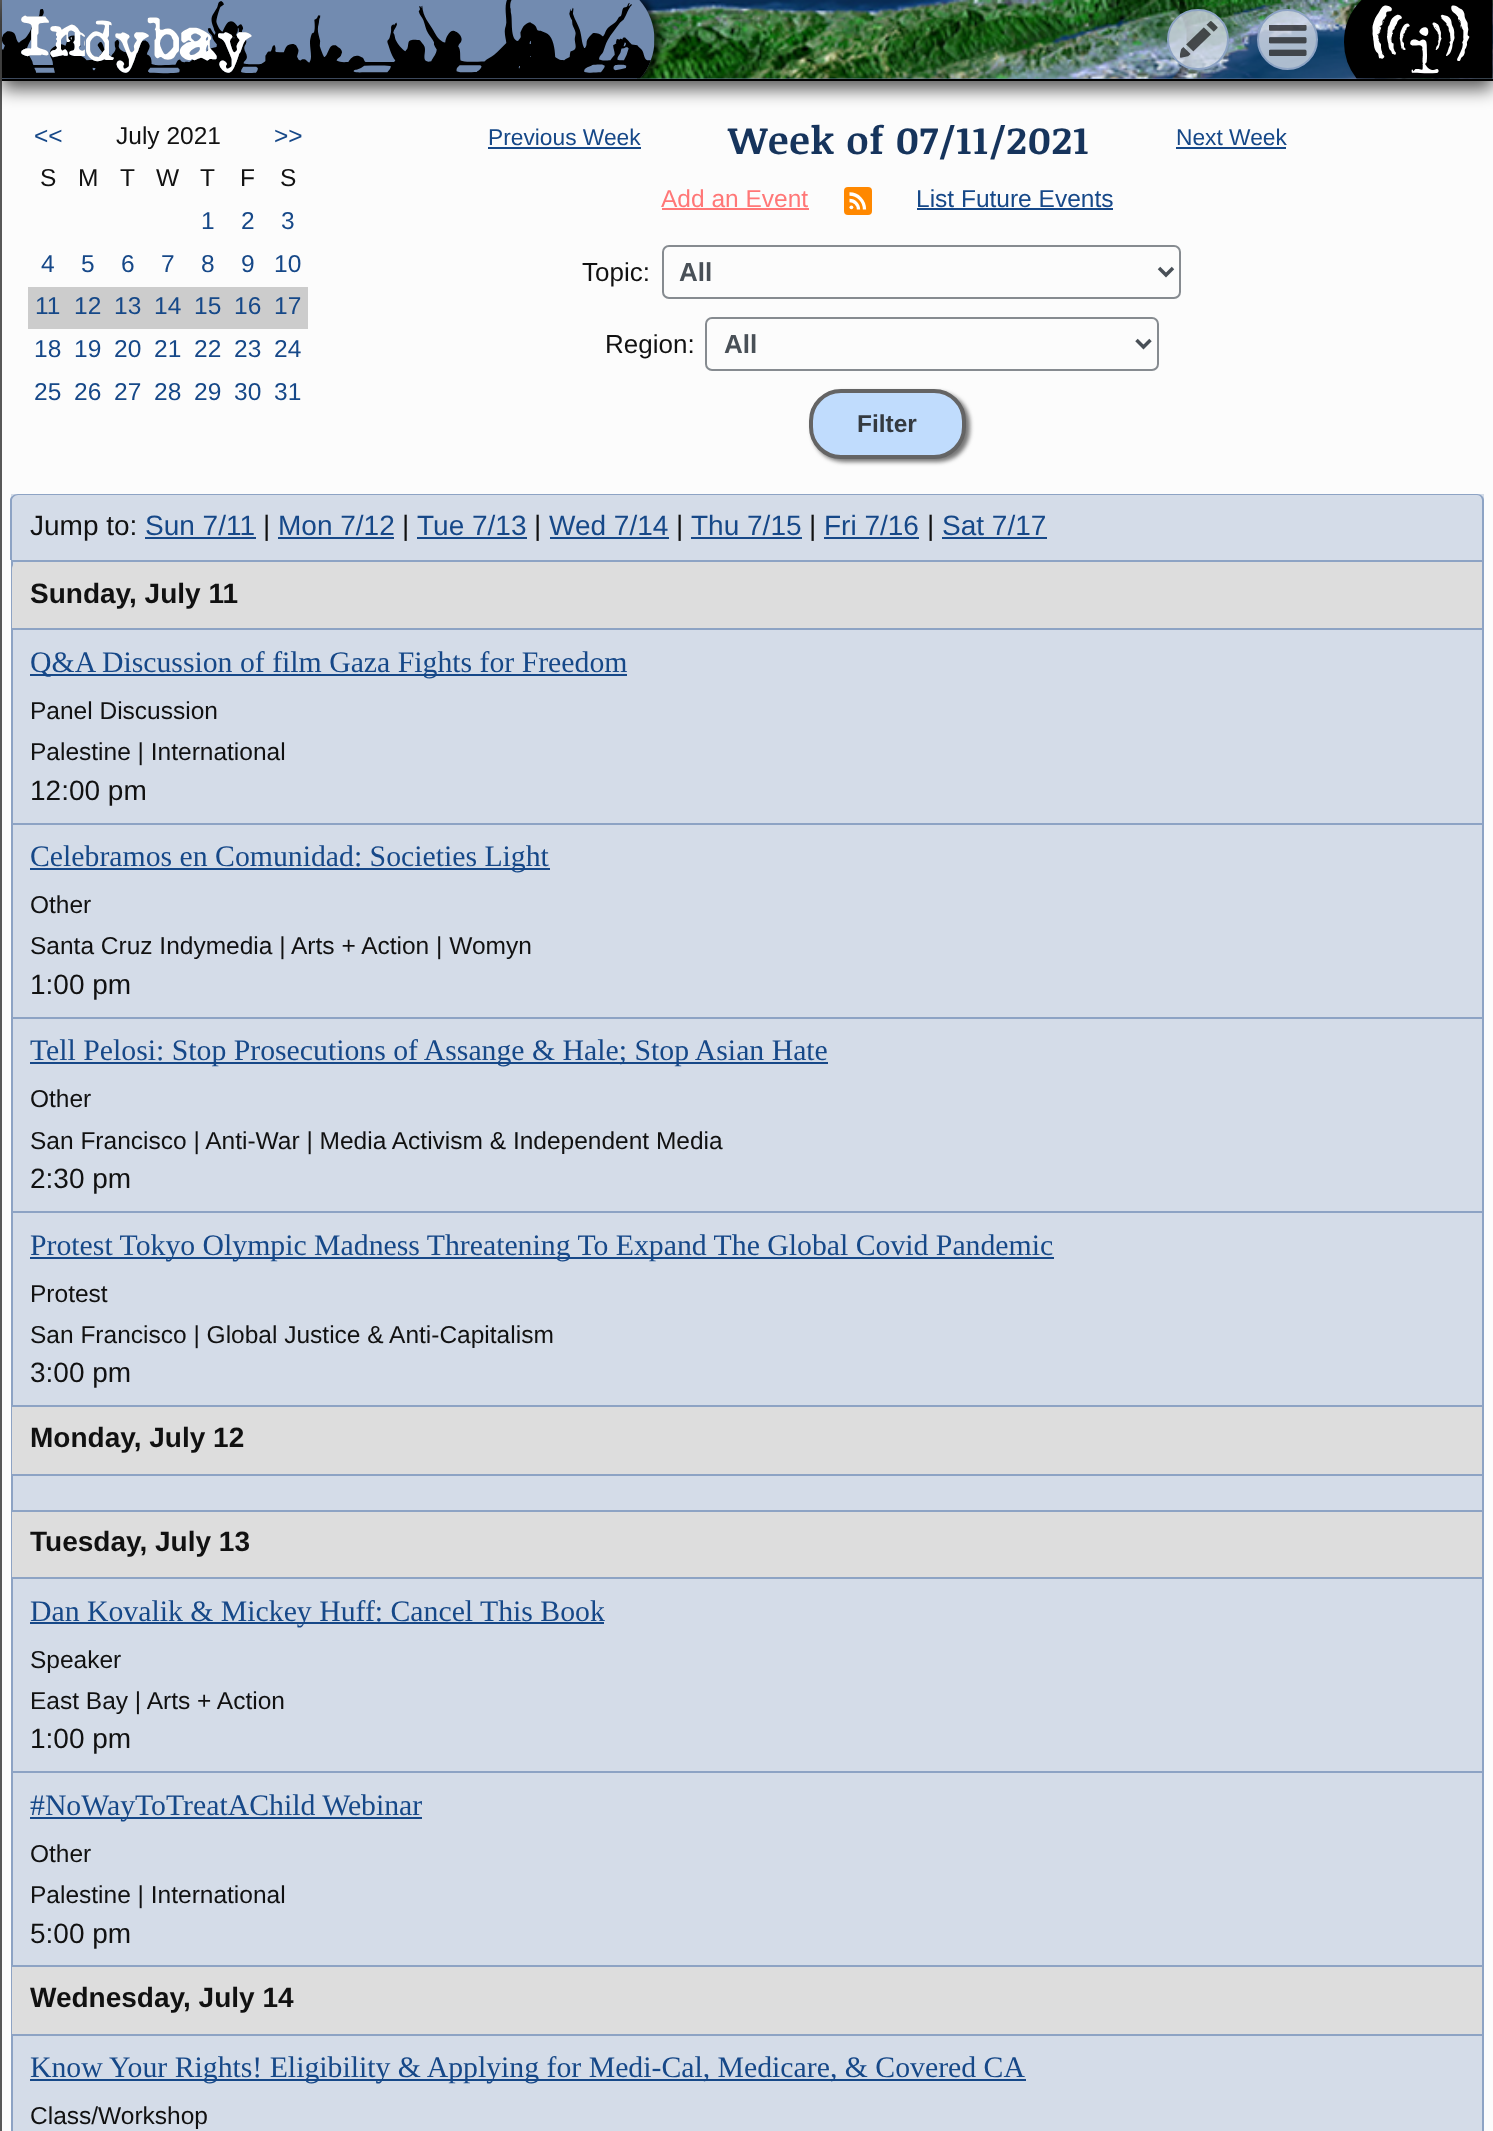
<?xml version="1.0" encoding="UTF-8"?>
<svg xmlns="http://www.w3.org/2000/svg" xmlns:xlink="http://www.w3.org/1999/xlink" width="1493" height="2131">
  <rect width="100%" height="100%" fill="#fcfcfc" />
  <rect width="2" height="2131" fill="#585858" />
  <rect x="2" y="9" width="1491" height="80" fill="#000000" fill-opacity="0.65" filter="blur(9px)" />
  <rect x="2" width="1491" height="79" fill="#728bb0" />
  <rect x="2" y="79" width="1491" height="2" fill="#000000" />
  <image x="637" y="0" width="856" height="79" xlink:href="image5.png" />
  <image x="2" y="0" width="664" height="79" xlink:href="image1.png" />
  <rect x="1168" y="10" width="60" height="59" rx="29.5" fill="#d4dce8" fill-opacity="0.8" stroke="#8da3c4" stroke-width="2" />
  <image x="1180" y="21" width="38" height="37" xlink:href="image2.png" />
  <circle cx="1287.5" cy="39.5" r="29.5" fill="#d4dce8" fill-opacity="0.8" stroke="#8da3c4" stroke-width="2" />
  <image x="1269" y="25" width="38" height="31" xlink:href="image3.png" />
  <image x="1344" y="0" width="149" height="79" xlink:href="image4.png" />
  <rect x="28" y="287" width="280" height="42" fill="#cccccc" />
  <rect x="488" y="147" width="153" height="2" fill="#164888" />
  <rect x="1176" y="147" width="110" height="2" fill="#164888" />
  <rect x="662" y="208" width="147" height="2" fill="#ff7777" />
  <rect x="844" y="187" width="28" height="28" rx="4" fill="#ff8800" />
  <circle cx="851.4" cy="207.3" r="1.9" fill="#ffffff" />
  <path d="M 849.5 200.5 c 5 0 9 4 9 9 m 6 0 c 0 -8.5 -6.5 -15.5 -15 -15.5" fill="none" stroke="#ffffff" stroke-width="3.3" />
  <rect x="917" y="208" width="196" height="2" fill="#164888" />
  <rect x="663" y="246" width="517" height="52" rx="6" fill="none" stroke="#868b90" stroke-width="2" />
  <path d="M 1159 268 l 7 7 l 7 -7" fill="none" stroke="#495057" stroke-width="3.5" />
  <rect x="706" y="318" width="452" height="52" rx="6" fill="none" stroke="#868b90" stroke-width="2" />
  <path d="M 1136.5 340 l 7 7 l 7 -7" fill="none" stroke="#495057" stroke-width="3.5" />
  <rect x="812" y="392" width="158" height="70" rx="32" fill="#777777" filter="blur(2px)" />
  <rect x="811" y="391" width="153" height="66" rx="30" fill="#c0dcfd" stroke="#646464" stroke-width="4" />
  <rect x="11" y="494" width="1473" height="1637" fill="#d4dce8" />
  <path d="M 18 494 h 1459 c 4 0 7 3 7 6 v 60 h -1474 v -60 c 0 -3 4 -6 8 -6 z m 0 1 h 1459 c 3 0 5 3 5 5 v 60 h -1470 v -60 c 0 -2 3 -5 6 -5 z" fill="#8da3c4" fill-rule="evenodd" />
  <rect x="145" y="537" width="111" height="2" fill="#164888" />
  <rect x="278" y="537" width="116" height="2" fill="#164888" />
  <rect x="417" y="537" width="110" height="2" fill="#164888" />
  <rect x="550" y="537" width="119" height="2" fill="#164888" />
  <rect x="691" y="537" width="111" height="2" fill="#164888" />
  <rect x="824" y="537" width="95" height="2" fill="#164888" />
  <rect x="942" y="537" width="105" height="2" fill="#164888" />
  <rect x="11" y="560" width="1473" height="2" fill="#8da3c4" />
  <rect x="1482" y="560" width="2" height="845" fill="#8da3c4" />
  <rect x="11" y="560" width="2" height="845" fill="#8da3c4" />
  <path d="M 19 562 h 1463 v 68 h -1470 v -61 c 0 -4 3 -7 7 -7 z" fill="#dddddd" />
  <rect x="12" y="628" width="1470" height="2" fill="#8da3c4" />
  <rect x="12" y="823" width="1470" height="2" fill="#8da3c4" />
  <rect x="30" y="674" width="597" height="2" fill="#164888" />
  <rect x="12" y="1017" width="1470" height="2" fill="#8da3c4" />
  <rect x="30" y="868" width="520" height="2" fill="#164888" />
  <rect x="12" y="1211" width="1470" height="2" fill="#8da3c4" />
  <rect x="30" y="1062" width="798" height="2" fill="#164888" />
  <rect x="30" y="1257" width="1024" height="2" fill="#164888" />
  <rect x="11" y="1405" width="1473" height="2" fill="#8da3c4" />
  <rect x="1482" y="1405" width="2" height="105" fill="#8da3c4" />
  <rect x="11" y="1405" width="2" height="105" fill="#8da3c4" />
  <rect x="12" y="1407" width="1470" height="67" fill="#dddddd" />
  <rect x="12" y="1474" width="1470" height="2" fill="#8da3c4" />
  <rect x="11" y="1510" width="1473" height="2" fill="#8da3c4" />
  <rect x="1482" y="1510" width="2" height="455" fill="#8da3c4" />
  <rect x="11" y="1510" width="2" height="455" fill="#8da3c4" />
  <rect x="12" y="1512" width="1470" height="65" fill="#dddddd" />
  <rect x="12" y="1577" width="1470" height="2" fill="#8da3c4" />
  <rect x="12" y="1771" width="1470" height="2" fill="#8da3c4" />
  <rect x="30" y="1622" width="574" height="2" fill="#164888" />
  <rect x="30" y="1817" width="392" height="2" fill="#164888" />
  <rect x="11" y="1965" width="1473" height="2" fill="#8da3c4" />
  <rect x="1482" y="1965" width="2" height="166" fill="#8da3c4" />
  <rect x="11" y="1965" width="2" height="166" fill="#8da3c4" />
  <rect x="12" y="1967" width="1470" height="67" fill="#dddddd" />
  <rect x="12" y="2034" width="1470" height="2" fill="#8da3c4" />
  <rect x="30" y="2079" width="996" height="2" fill="#164888" />
  <text x="19" y="61" style="font-family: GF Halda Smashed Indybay; font-size: 61.5px; fill: #4e6079">Indybay</text>
  <text x="19" y="61" style="font-family: GF Halda Smashed Indybay; font-size: 61.5px; fill: #ffffff">Indybay</text>
  <text x="34" y="144" style="font-family: Liberation Sans; font-size: 24.5px; fill: #164888">&lt;&lt;</text>
  <text x="116" y="144" style="font-family: Liberation Sans; font-size: 24.5px; fill: #111111">July 2021</text>
  <text x="274" y="144" style="font-family: Liberation Sans; font-size: 24.5px; fill: #164888">&gt;&gt;</text>
  <text x="40" y="186" style="font-family: Liberation Sans; font-size: 24.5px; fill: #111111">S</text>
  <text x="78" y="186" style="font-family: Liberation Sans; font-size: 24.5px; fill: #111111">M</text>
  <text x="120" y="186" style="font-family: Liberation Sans; font-size: 24.5px; fill: #111111">T</text>
  <text x="156" y="186" style="font-family: Liberation Sans; font-size: 24.5px; fill: #111111">W</text>
  <text x="200" y="186" style="font-family: Liberation Sans; font-size: 24.5px; fill: #111111">T</text>
  <text x="240" y="186" style="font-family: Liberation Sans; font-size: 24.5px; fill: #111111">F</text>
  <text x="280" y="186" style="font-family: Liberation Sans; font-size: 24.5px; fill: #111111">S</text>
  <text x="201" y="229" style="font-family: Liberation Sans; font-size: 24.5px; fill: #164888">1</text>
  <text x="241" y="229" style="font-family: Liberation Sans; font-size: 24.5px; fill: #164888">2</text>
  <text x="281" y="229" style="font-family: Liberation Sans; font-size: 24.5px; fill: #164888">3</text>
  <text x="41" y="272" style="font-family: Liberation Sans; font-size: 24.5px; fill: #164888">4</text>
  <text x="81" y="272" style="font-family: Liberation Sans; font-size: 24.5px; fill: #164888">5</text>
  <text x="121" y="272" style="font-family: Liberation Sans; font-size: 24.5px; fill: #164888">6</text>
  <text x="161" y="272" style="font-family: Liberation Sans; font-size: 24.5px; fill: #164888">7</text>
  <text x="201" y="272" style="font-family: Liberation Sans; font-size: 24.5px; fill: #164888">8</text>
  <text x="241" y="272" style="font-family: Liberation Sans; font-size: 24.5px; fill: #164888">9</text>
  <text x="274" y="272" style="font-family: Liberation Sans; font-size: 24.5px; fill: #164888">10</text>
  <text x="35" y="314" style="font-family: Liberation Sans; font-size: 24.5px; fill: #164888">11</text>
  <text x="74" y="314" style="font-family: Liberation Sans; font-size: 24.5px; fill: #164888">12</text>
  <text x="114" y="314" style="font-family: Liberation Sans; font-size: 24.5px; fill: #164888">13</text>
  <text x="154" y="314" style="font-family: Liberation Sans; font-size: 24.5px; fill: #164888">14</text>
  <text x="194" y="314" style="font-family: Liberation Sans; font-size: 24.5px; fill: #164888">15</text>
  <text x="234" y="314" style="font-family: Liberation Sans; font-size: 24.5px; fill: #164888">16</text>
  <text x="274" y="314" style="font-family: Liberation Sans; font-size: 24.5px; fill: #164888">17</text>
  <text x="34" y="357" style="font-family: Liberation Sans; font-size: 24.5px; fill: #164888">18</text>
  <text x="74" y="357" style="font-family: Liberation Sans; font-size: 24.5px; fill: #164888">19</text>
  <text x="114" y="357" style="font-family: Liberation Sans; font-size: 24.5px; fill: #164888">20</text>
  <text x="154" y="357" style="font-family: Liberation Sans; font-size: 24.5px; fill: #164888">21</text>
  <text x="194" y="357" style="font-family: Liberation Sans; font-size: 24.5px; fill: #164888">22</text>
  <text x="234" y="357" style="font-family: Liberation Sans; font-size: 24.5px; fill: #164888">23</text>
  <text x="274" y="357" style="font-family: Liberation Sans; font-size: 24.5px; fill: #164888">24</text>
  <text x="34" y="400" style="font-family: Liberation Sans; font-size: 24.5px; fill: #164888">25</text>
  <text x="74" y="400" style="font-family: Liberation Sans; font-size: 24.5px; fill: #164888">26</text>
  <text x="114" y="400" style="font-family: Liberation Sans; font-size: 24.5px; fill: #164888">27</text>
  <text x="154" y="400" style="font-family: Liberation Sans; font-size: 24.5px; fill: #164888">28</text>
  <text x="194" y="400" style="font-family: Liberation Sans; font-size: 24.5px; fill: #164888">29</text>
  <text x="234" y="400" style="font-family: Liberation Sans; font-size: 24.5px; fill: #164888">30</text>
  <text x="274" y="400" style="font-family: Liberation Sans; font-size: 24.5px; fill: #164888">31</text>
  <text x="488" y="145" style="font-family: Liberation Sans; font-size: 22.75px; fill: #164888">Previous Week</text>
  <text x="728" y="154" style="font-family: Noticia Text; font-size: 38.5px; font-weight: bold; letter-spacing: 0.9px; fill: #16345c">Week of 07/11/2021</text>
  <text x="1176" y="145" style="font-family: Liberation Sans; font-size: 22.75px; fill: #164888">Next Week</text>
  <text x="661" y="207" style="font-family: Liberation Sans; font-size: 24.5px; fill: #ff7777">Add an Event</text>
  <text x="916" y="207" style="font-family: Liberation Sans; font-size: 24.5px; fill: #164888">List Future Events</text>
  <text x="582" y="281" style="font-family: Liberation Sans; font-size: 26px; fill: #111111">Topic:</text>
  <text x="679" y="281" style="font-family: Liberation Sans; font-size: 26px; font-weight: bold; fill: #495057">All</text>
  <text x="605" y="353" style="font-family: Liberation Sans; font-size: 26px; fill: #111111">Region:</text>
  <text x="724" y="353" style="font-family: Liberation Sans; font-size: 26px; font-weight: bold; fill: #495057">All</text>
  <text x="857" y="432" style="font-family: Liberation Sans; font-size: 24.5px; font-weight: bold; fill: #343a40">Filter</text>
  <text x="30" y="535" style="font-family: Liberation Sans; font-size: 28px; fill: #111111">Jump to:</text>
  <text x="145" y="535" style="font-family: Liberation Sans; font-size: 28px; fill: #164888">Sun 7/11</text>
  <text x="263" y="535" style="font-family: Liberation Sans; font-size: 28px; fill: #111111">|</text>
  <text x="278" y="535" style="font-family: Liberation Sans; font-size: 28px; fill: #164888">Mon 7/12</text>
  <text x="402" y="535" style="font-family: Liberation Sans; font-size: 28px; fill: #111111">|</text>
  <text x="417" y="535" style="font-family: Liberation Sans; font-size: 28px; fill: #164888">Tue 7/13</text>
  <text x="534" y="535" style="font-family: Liberation Sans; font-size: 28px; fill: #111111">|</text>
  <text x="549" y="535" style="font-family: Liberation Sans; font-size: 28px; fill: #164888">Wed 7/14</text>
  <text x="676" y="535" style="font-family: Liberation Sans; font-size: 28px; fill: #111111">|</text>
  <text x="691" y="535" style="font-family: Liberation Sans; font-size: 28px; fill: #164888">Thu 7/15</text>
  <text x="809" y="535" style="font-family: Liberation Sans; font-size: 28px; fill: #111111">|</text>
  <text x="824" y="535" style="font-family: Liberation Sans; font-size: 28px; fill: #164888">Fri 7/16</text>
  <text x="927" y="535" style="font-family: Liberation Sans; font-size: 28px; fill: #111111">|</text>
  <text x="942" y="535" style="font-family: Liberation Sans; font-size: 28px; fill: #164888">Sat 7/17</text>
  <text x="30" y="603" style="font-family: Liberation Sans; font-size: 28px; font-weight: bold; fill: #111111">Sunday, July 11</text>
  <text x="30" y="672" style="font-family: Liberation Serif; font-size: 29.75px; fill: #164888">Q&amp;A Discussion of film Gaza Fights for Freedom</text>
  <text x="30" y="719" style="font-family: Liberation Sans; font-size: 24.5px; fill: #111111">Panel Discussion</text>
  <text x="30" y="760" style="font-family: Liberation Sans; font-size: 24.5px; fill: #111111">Palestine | International</text>
  <text x="30" y="800" style="font-family: Liberation Sans; font-size: 28px; fill: #111111">12:00 pm</text>
  <text x="30" y="866" style="font-family: Liberation Serif; font-size: 29.75px; fill: #164888">Celebramos en Comunidad: Societies Light</text>
  <text x="30" y="913" style="font-family: Liberation Sans; font-size: 24.5px; fill: #111111">Other</text>
  <text x="30" y="954" style="font-family: Liberation Sans; font-size: 24.5px; fill: #111111">Santa Cruz Indymedia | Arts + Action | Womyn</text>
  <text x="30" y="994" style="font-family: Liberation Sans; font-size: 28px; fill: #111111">1:00 pm</text>
  <text x="30" y="1060" style="font-family: Liberation Serif; font-size: 29.75px; fill: #164888">Tell Pelosi: Stop Prosecutions of Assange &amp; Hale; Stop Asian Hate</text>
  <text x="30" y="1107" style="font-family: Liberation Sans; font-size: 24.5px; fill: #111111">Other</text>
  <text x="30" y="1149" style="font-family: Liberation Sans; font-size: 24.5px; fill: #111111">San Francisco | Anti-War | Media Activism &amp; Independent Media</text>
  <text x="30" y="1188" style="font-family: Liberation Sans; font-size: 28px; fill: #111111">2:30 pm</text>
  <text x="30" y="1255" style="font-family: Liberation Serif; font-size: 29.75px; fill: #164888">Protest Tokyo Olympic Madness Threatening To Expand The Global Covid Pandemic</text>
  <text x="30" y="1302" style="font-family: Liberation Sans; font-size: 24.5px; fill: #111111">Protest</text>
  <text x="30" y="1343" style="font-family: Liberation Sans; font-size: 24.5px; fill: #111111">San Francisco | Global Justice &amp; Anti-Capitalism</text>
  <text x="30" y="1382" style="font-family: Liberation Sans; font-size: 28px; fill: #111111">3:00 pm</text>
  <text x="30" y="1447" style="font-family: Liberation Sans; font-size: 28px; font-weight: bold; fill: #111111">Monday, July 12</text>
  <text x="30" y="1551" style="font-family: Liberation Sans; font-size: 28px; font-weight: bold; fill: #111111">Tuesday, July 13</text>
  <text x="30" y="1621" style="font-family: Liberation Serif; font-size: 29.75px; fill: #164888">Dan Kovalik &amp; Mickey Huff: Cancel This Book</text>
  <text x="30" y="1668" style="font-family: Liberation Sans; font-size: 24.5px; fill: #111111">Speaker</text>
  <text x="30" y="1709" style="font-family: Liberation Sans; font-size: 24.5px; fill: #111111">East Bay | Arts + Action</text>
  <text x="30" y="1748" style="font-family: Liberation Sans; font-size: 28px; fill: #111111">1:00 pm</text>
  <text x="30" y="1815" style="font-family: Liberation Serif; font-size: 29.75px; fill: #164888">#NoWayToTreatAChild Webinar</text>
  <text x="30" y="1862" style="font-family: Liberation Sans; font-size: 24.5px; fill: #111111">Other</text>
  <text x="30" y="1903" style="font-family: Liberation Sans; font-size: 24.5px; fill: #111111">Palestine | International</text>
  <text x="30" y="1943" style="font-family: Liberation Sans; font-size: 28px; fill: #111111">5:00 pm</text>
  <text x="30" y="2007" style="font-family: Liberation Sans; font-size: 28px; font-weight: bold; fill: #111111">Wednesday, July 14</text>
  <text x="30" y="2077" style="font-family: Liberation Serif; font-size: 29.75px; fill: #164888">Know Your Rights! Eligibility &amp; Applying for Medi-Cal, Medicare, &amp; Covered CA</text>
  <text x="30" y="2124" style="font-family: Liberation Sans; font-size: 24.5px; fill: #111111">Class/Workshop</text>
</svg>
